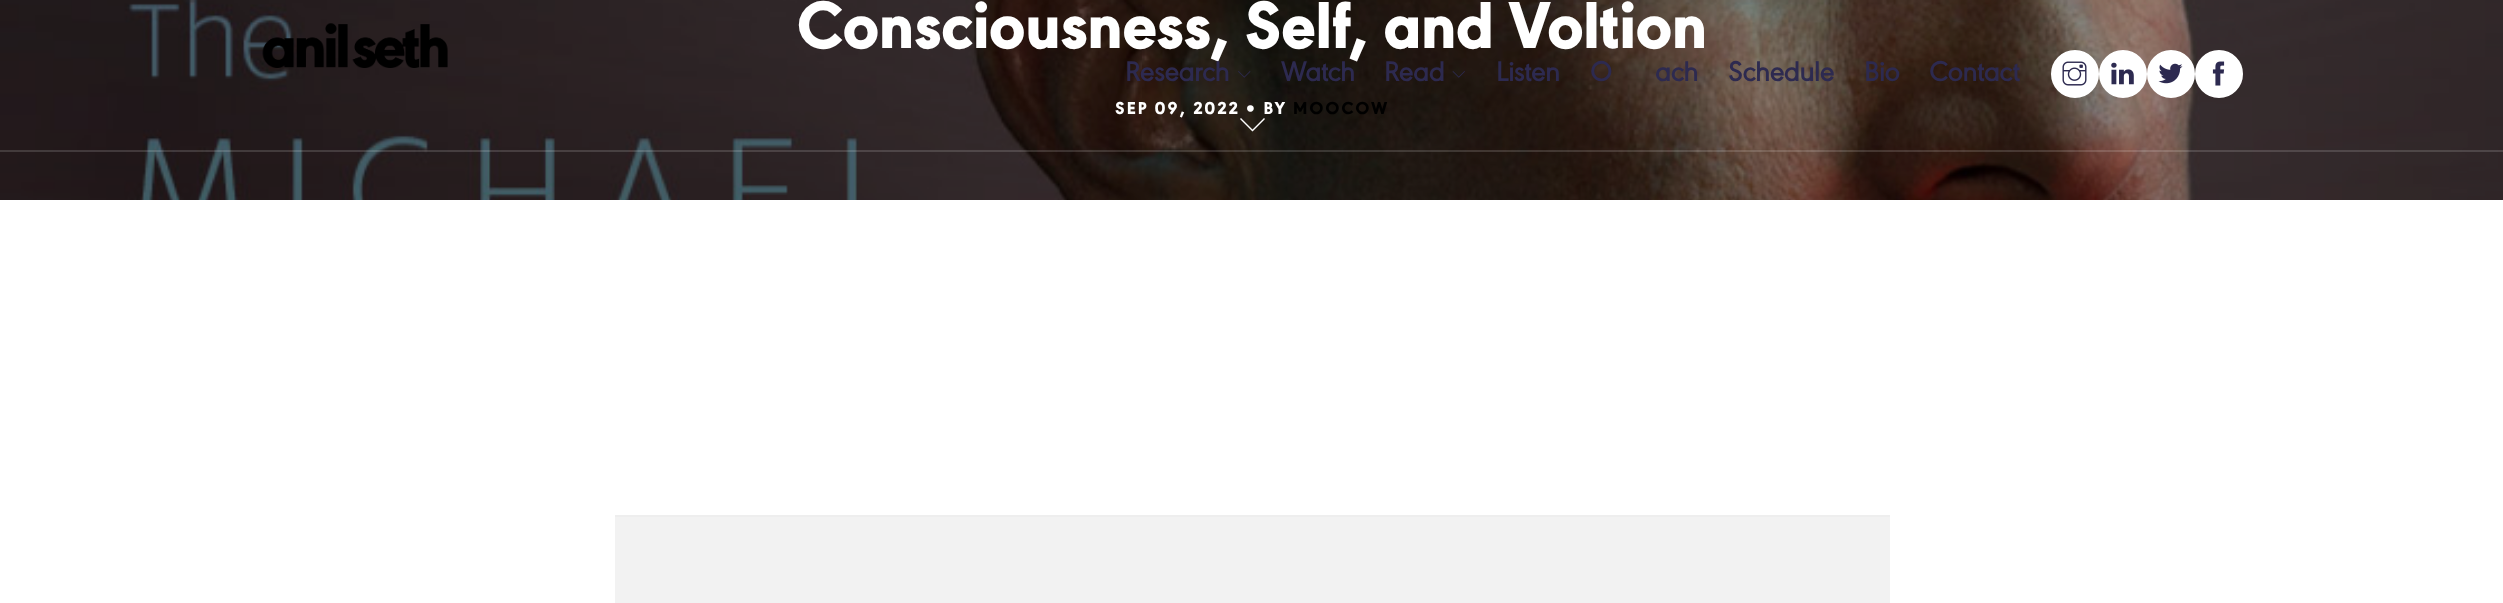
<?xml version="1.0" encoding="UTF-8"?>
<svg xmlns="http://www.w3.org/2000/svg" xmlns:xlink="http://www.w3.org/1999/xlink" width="2503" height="603">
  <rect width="100%" height="100%" fill="#ffffff" />
  <image x="0" y="0" width="2503" height="200" xlink:href="image1.png" />
  <path d="M 1265 119 l -1 -1 l -11.5 11.5 l -11.5 -11.5 l -1 1 l 12.5 12.5 z" fill="#ffffff" />
  <rect x="615" y="517" width="1275" height="86" fill="#f2f2f2" />
  <rect x="615" y="515" width="1275" height="2" fill="#eeeeee" />
  <rect y="150" width="2503" height="2" fill="#ffffff" fill-opacity="0.15" />
  <image x="262" y="23" width="186" height="45" xlink:href="image2.png" />
  <image x="1238" y="71" width="13" height="7" xlink:href="image3.png" />
  <image x="1452" y="71" width="13" height="7" xlink:href="image4.png" />
  <circle cx="2075" cy="74" r="23" fill="#ffffff" stroke="#ffffff" stroke-width="2" />
  <image x="2062" y="61" width="25" height="25" xlink:href="image5.png" />
  <circle cx="2123" cy="74" r="23" fill="#ffffff" stroke="#ffffff" stroke-width="2" />
  <image x="2111" y="62" width="23" height="23" xlink:href="image6.png" />
  <circle cx="2171" cy="74" r="23" fill="#ffffff" stroke="#ffffff" stroke-width="2" />
  <image x="2158" y="63" width="25" height="21" xlink:href="image7.png" />
  <circle cx="2219" cy="74" r="23" fill="#ffffff" stroke="#ffffff" stroke-width="2" />
  <image x="2212" y="61" width="13" height="25" xlink:href="image8.png" />
  <text x="797" y="48" style="font-family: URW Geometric; font-size: 69px; font-weight: 900; fill: #ffffff">Consciousness, Self, and Voltion</text>
  <text x="1115" y="114" style="font-family: URW Geometric; font-size: 18px; font-weight: 900; letter-spacing: 2.2px; fill: #ffffff">SEP 09, 2022 • BY</text>
  <text x="1293" y="114" style="font-family: URW Geometric; font-size: 18px; font-weight: 900; letter-spacing: 2.2px; fill: #000000">MOOCOW</text>
  <text x="1125" y="81" style="font-family: URW Geometric; font-size: 28.5px; font-weight: bold; fill: #2d2a50">Research</text>
  <text x="1281" y="81" style="font-family: URW Geometric; font-size: 28.5px; font-weight: bold; fill: #2d2a50">Watch</text>
  <text x="1384" y="81" style="font-family: URW Geometric; font-size: 28.5px; font-weight: bold; fill: #2d2a50">Read</text>
  <text x="1496" y="81" style="font-family: URW Geometric; font-size: 28.5px; font-weight: bold; fill: #2d2a50">Listen</text>
  <text x="1590" y="81" style="font-family: URW Geometric; font-size: 28.5px; font-weight: bold; fill: #2d2a50">O</text>
  <text x="1655" y="81" style="font-family: URW Geometric; font-size: 28.5px; font-weight: bold; fill: #2d2a50">ach</text>
  <text x="1728" y="81" style="font-family: URW Geometric; font-size: 28.5px; font-weight: bold; fill: #2d2a50">Schedule</text>
  <text x="1864" y="81" style="font-family: URW Geometric; font-size: 28.5px; font-weight: bold; fill: #2d2a50">Bio</text>
  <text x="1929" y="81" style="font-family: URW Geometric; font-size: 28.5px; font-weight: bold; fill: #2d2a50">Contact</text>
</svg>
